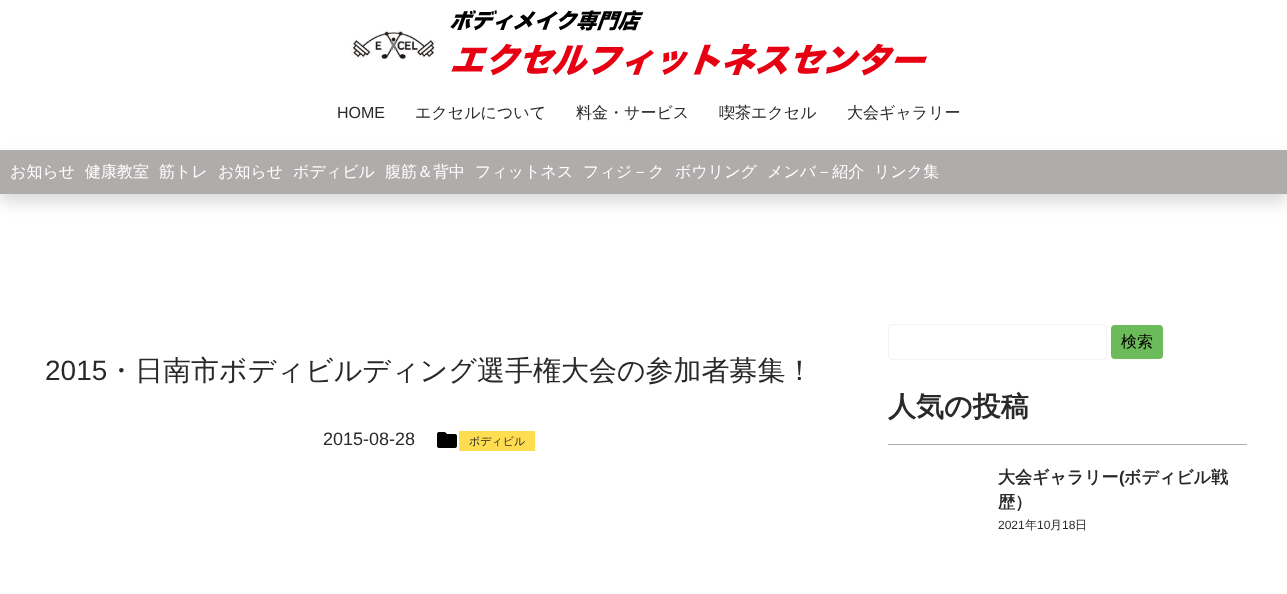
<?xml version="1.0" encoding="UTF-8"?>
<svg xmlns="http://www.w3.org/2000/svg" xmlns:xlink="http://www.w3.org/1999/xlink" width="1287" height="594">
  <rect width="100%" height="100%" fill="#ffffff" />
  <image x="351" y="10" width="576" height="66" xlink:href="image1.png" />
  <rect y="158" width="1287" height="44" fill="#000000" fill-opacity="0.15" filter="blur(8px)" />
  <rect y="150" width="1287" height="44" fill="#b1acac" />
  <image x="437" y="432" width="20" height="16" xlink:href="image2.png" />
  <rect x="459" y="431" width="76" height="20" fill="#ffdd50" />
  <rect x="888.5" y="324.5" width="218" height="35" rx="3.5" fill="none" stroke="#f3f3f3" />
  <rect x="1111" y="325" width="52" height="34" rx="4" fill="#6cbb5a" />
  <rect x="888" y="444" width="359" height="1" fill="#b1acac" />
  <text x="337" y="118" style="font-family: Liberation Sans; font-size: 16px; fill: #292929">HOME</text>
  <text x="415" y="118" style="font-family: WenQuanYi Zen Hei; font-size: 16px; font-weight: 500; fill: #292929">エクセルについて</text>
  <text x="576" y="118" style="font-family: WenQuanYi Zen Hei; font-size: 16px; font-weight: 500; fill: #292929">料金・サービス</text>
  <text x="719" y="118" style="font-family: WenQuanYi Zen Hei; font-size: 16px; font-weight: 500; fill: #292929">喫茶エクセル</text>
  <text x="847" y="118" style="font-family: WenQuanYi Zen Hei; font-size: 16px; font-weight: 500; fill: #292929">大会ギャラリー</text>
  <text x="10" y="177" style="font-family: WenQuanYi Zen Hei; font-size: 16px; font-weight: 500; fill: #ffffff">お知らせ</text>
  <text x="85" y="177" style="font-family: WenQuanYi Zen Hei; font-size: 16px; font-weight: 500; fill: #ffffff">健康教室</text>
  <text x="159" y="177" style="font-family: WenQuanYi Zen Hei; font-size: 16px; font-weight: 500; fill: #ffffff">筋トレ</text>
  <text x="218" y="177" style="font-family: WenQuanYi Zen Hei; font-size: 16px; font-weight: 500; fill: #ffffff">お知らせ</text>
  <text x="293" y="177" style="font-family: WenQuanYi Zen Hei; font-size: 16px; font-weight: 500; fill: #ffffff">ボディビル</text>
  <text x="385" y="177" style="font-family: WenQuanYi Zen Hei; font-size: 16px; font-weight: 500; fill: #ffffff">腹筋＆背中</text>
  <text x="475" y="177" style="font-family: WenQuanYi Zen Hei; font-size: 16px; font-weight: 500; fill: #ffffff">フィットネス</text>
  <text x="583" y="177" style="font-family: WenQuanYi Zen Hei; font-size: 16px; font-weight: 500; fill: #ffffff">フィジ－ク</text>
  <text x="675" y="177" style="font-family: WenQuanYi Zen Hei; font-size: 16px; font-weight: 500; fill: #ffffff">ボウリング</text>
  <text x="767" y="177" style="font-family: WenQuanYi Zen Hei; font-size: 16px; font-weight: 500; fill: #ffffff">メンバ－紹介</text>
  <text x="874" y="177" style="font-family: WenQuanYi Zen Hei; font-size: 16px; font-weight: 500; fill: #ffffff">リンク集</text>
  <text x="45" y="380" style="font-family: Liberation Sans; font-size: 28px; fill: #292929">2015</text>
  <text x="107" y="380" style="font-family: WenQuanYi Zen Hei; font-size: 28px; font-weight: 500; fill: #292929">・日南市ボディビルディング選手権大会の参加者募集！</text>
  <text x="323" y="445" style="font-family: Liberation Sans; font-size: 18px; fill: #292929">2015-08-28</text>
  <text x="469" y="445" style="font-family: WenQuanYi Zen Hei; font-size: 11px; font-weight: 500; fill: #292929">ボディビル</text>
  <text x="1121" y="347" style="font-family: WenQuanYi Zen Hei; font-size: 16px; font-weight: 500; fill: #000000">検索</text>
  <text x="888" y="416" style="font-family: WenQuanYi Zen Hei; font-size: 28px; font-weight: bold; fill: #292929">人気の投稿</text>
  <text x="998" y="483" style="font-family: WenQuanYi Zen Hei; font-size: 17px; font-weight: bold; fill: #292929">大会ギャラリー</text>
  <text x="1119" y="483" style="font-family: Liberation Sans; font-size: 17px; font-weight: bold; fill: #292929">(</text>
  <text x="1124" y="483" style="font-family: WenQuanYi Zen Hei; font-size: 17px; font-weight: bold; fill: #292929">ボディビル戦</text>
  <text x="998" y="508" style="font-family: WenQuanYi Zen Hei; font-size: 17px; font-weight: bold; fill: #292929">歴）</text>
  <text x="998" y="529" style="font-family: Liberation Sans; font-size: 12px; fill: #292929">2021</text>
  <text x="1025" y="529" style="font-family: WenQuanYi Zen Hei; font-size: 12px; font-weight: 500; fill: #292929">年</text>
  <text x="1037" y="529" style="font-family: Liberation Sans; font-size: 12px; fill: #292929">10</text>
  <text x="1050" y="529" style="font-family: WenQuanYi Zen Hei; font-size: 12px; font-weight: 500; fill: #292929">月</text>
  <text x="1062" y="529" style="font-family: Liberation Sans; font-size: 12px; fill: #292929">18</text>
  <text x="1075" y="529" style="font-family: WenQuanYi Zen Hei; font-size: 12px; font-weight: 500; fill: #292929">日</text>
</svg>
